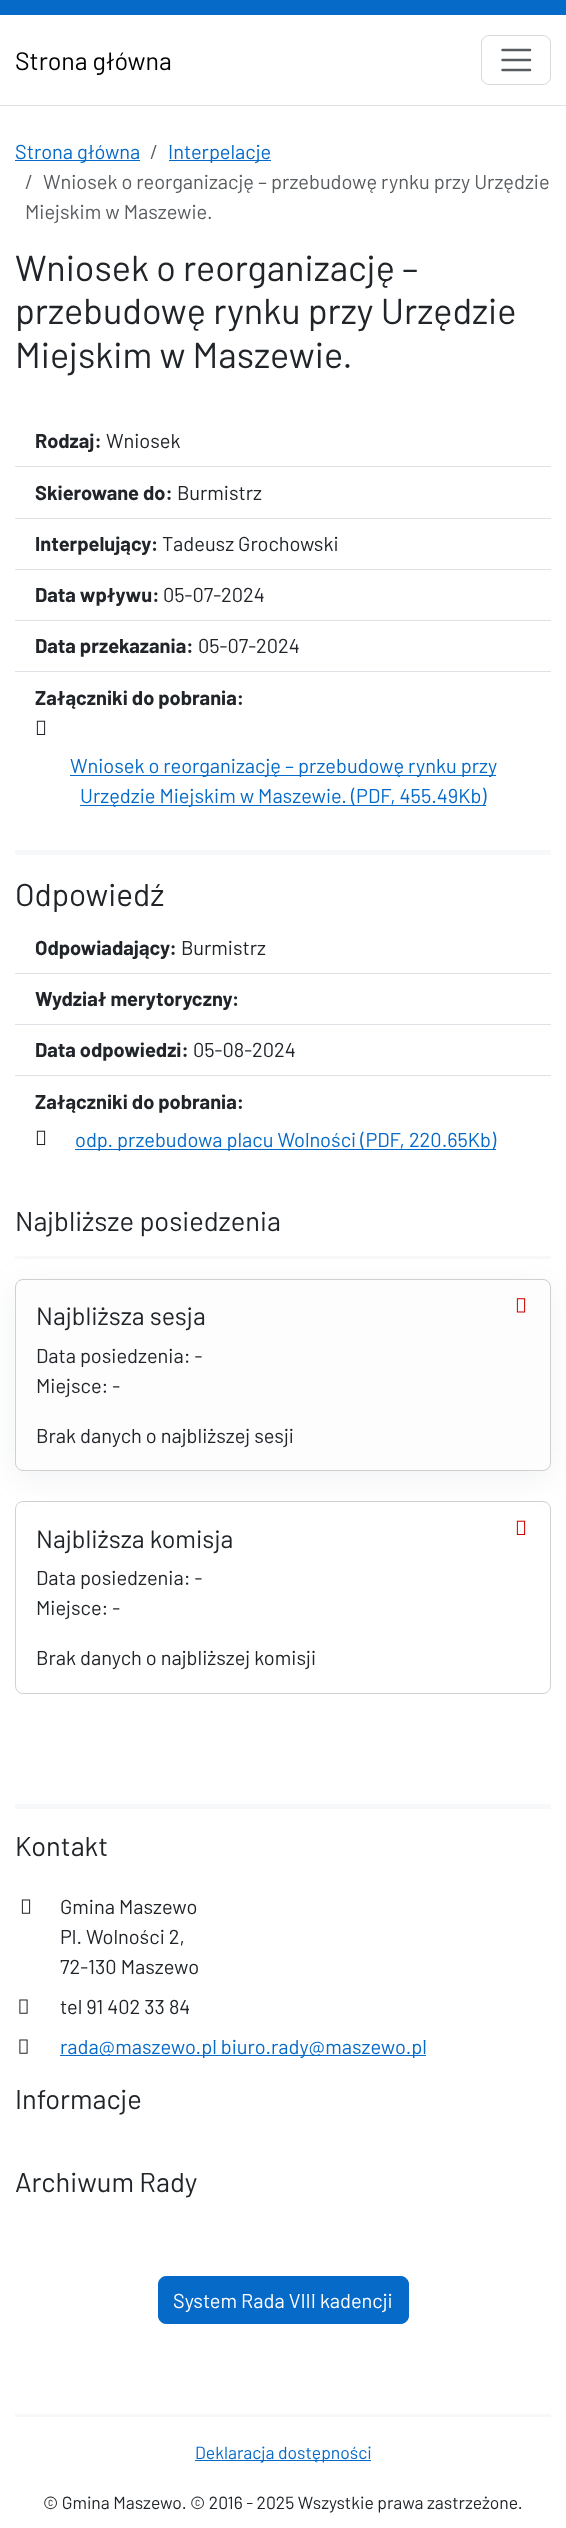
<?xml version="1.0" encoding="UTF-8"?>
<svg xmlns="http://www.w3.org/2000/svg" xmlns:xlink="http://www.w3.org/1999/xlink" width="566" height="2528">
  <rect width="100%" height="100%" fill="#ffffff" />
  <rect width="566" height="15" fill="#066ac9" />
  <rect y="105" width="566" height="1" fill="#dee2e6" />
  <rect x="481.5" y="35.5" width="69" height="49" rx="7.5" fill="none" stroke="#d9d9d9" />
  <path d="M 502.5 50 h 27.5 m -27.5 10 h 27.5 m -27.5 10 h 27.5" fill="none" stroke="#595c5f" stroke-width="2.5" stroke-linecap="round" />
  <rect x="15" y="160" width="125" height="1" fill="#066ac9" />
  <rect x="169" y="160" width="102" height="1" fill="#066ac9" />
  <rect x="15" y="466" width="536" height="1" fill="#dee2e6" />
  <rect x="15" y="518" width="536" height="1" fill="#dee2e6" />
  <rect x="15" y="569" width="536" height="1" fill="#dee2e6" />
  <rect x="15" y="620" width="536" height="1" fill="#dee2e6" />
  <rect x="15" y="671" width="536" height="1" fill="#dee2e6" />
  <image x="36" y="720" width="10" height="15" xlink:href="image1.png" />
  <rect x="70" y="775" width="426" height="1" fill="#066ac9" />
  <rect x="80" y="805" width="406" height="1" fill="#066ac9" />
  <rect x="15" y="850" width="536" height="5" fill="#f7f8f9" />
  <rect x="15" y="973" width="536" height="1" fill="#dee2e6" />
  <rect x="15" y="1024" width="536" height="1" fill="#dee2e6" />
  <rect x="15" y="1075" width="536" height="1" fill="#dee2e6" />
  <image x="36" y="1130" width="10" height="15" xlink:href="image1.png" />
  <rect x="75" y="1149" width="421" height="1" fill="#066ac9" />
  <rect x="15" y="1256" width="536" height="3" fill="#f7f8f9" />
  <rect x="15" y="1286" width="536" height="193" rx="8" fill="#8c98a4" fill-opacity="0.12" filter="blur(15px)" />
  <rect x="15.5" y="1279.5" width="535" height="191" rx="7.5" fill="#fdfdfe" stroke="#d0d0d1" />
  <image x="516" y="1298" width="10" height="15" xlink:href="image2.png" />
  <rect x="15.5" y="1501.5" width="535" height="192" rx="7.5" fill="none" stroke="#000000" stroke-opacity="0.18" />
  <image x="516" y="1520" width="10" height="15" xlink:href="image3.png" />
  <rect x="15" y="1804" width="536" height="5" fill="#f7f8f9" />
  <image x="21" y="1899" width="10" height="15" xlink:href="image4.png" />
  <image x="19" y="1999" width="9" height="15" xlink:href="image5.png" />
  <image x="19" y="2039" width="9" height="15" xlink:href="image5.png" />
  <rect x="60" y="2055" width="366" height="1" fill="#066ac9" />
  <rect x="158.5" y="2276.5" width="250" height="47" rx="7.5" fill="#066ac9" stroke="#066ac9" />
  <rect x="15" y="2414" width="536" height="3" fill="#f7f8f9" />
  <rect x="195" y="2460" width="176" height="1" fill="#066ac9" />
  <text x="15" y="70" style="font-family: Barlow; font-size: 25px; fill: #000000">Strona główna</text>
  <text x="15" y="159" style="font-family: Barlow; font-size: 20px; fill: #066ac9">Strona główna</text>
  <text x="150" y="159" style="font-family: Barlow; font-size: 20px; fill: #595c5f">/</text>
  <text x="168" y="159" style="font-family: Barlow; font-size: 20px; fill: #066ac9">Interpelacje</text>
  <text x="25" y="189" style="font-family: Barlow; font-size: 20px; fill: #595c5f">/</text>
  <text x="43" y="189" style="font-family: Barlow; font-size: 20px; fill: #595c5f">Wniosek o reorganizację – przebudowę rynku przy Urzędzie</text>
  <text x="25" y="219" style="font-family: Barlow; font-size: 20px; fill: #595c5f">Miejskim w Maszewie.</text>
  <text x="15" y="281" style="font-family: Barlow; font-size: 36px; fill: #212529">Wniosek o reorganizację –</text>
  <text x="15" y="324" style="font-family: Barlow; font-size: 36px; fill: #212529">przebudowę rynku przy Urzędzie</text>
  <text x="15" y="368" style="font-family: Barlow; font-size: 36px; fill: #212529">Miejskim w Maszewie.</text>
  <text x="35" y="448" style="font-family: Barlow; font-size: 20px; font-weight: bold; fill: #212529">Rodzaj:</text>
  <text x="106" y="448" style="font-family: Barlow; font-size: 20px; fill: #212529">Wniosek</text>
  <text x="35" y="500" style="font-family: Barlow; font-size: 20px; font-weight: bold; fill: #212529">Skierowane do:</text>
  <text x="177" y="500" style="font-family: Barlow; font-size: 20px; fill: #212529">Burmistrz</text>
  <text x="35" y="551" style="font-family: Barlow; font-size: 20px; font-weight: bold; fill: #212529">Interpelujący:</text>
  <text x="162" y="551" style="font-family: Barlow; font-size: 20px; fill: #212529">Tadeusz Grochowski</text>
  <text x="35" y="602" style="font-family: Barlow; font-size: 20px; font-weight: bold; fill: #212529">Data wpływu:</text>
  <text x="163" y="602" style="font-family: Barlow; font-size: 20px; fill: #212529">05-07-2024</text>
  <text x="35" y="653" style="font-family: Barlow; font-size: 20px; font-weight: bold; fill: #212529">Data przekazania:</text>
  <text x="198" y="653" style="font-family: Barlow; font-size: 20px; fill: #212529">05-07-2024</text>
  <text x="35" y="705" style="font-family: Barlow; font-size: 20px; font-weight: bold; fill: #212529">Załączniki do pobrania:</text>
  <text x="70" y="773" style="font-family: Barlow; font-size: 20px; fill: #066ac9">Wniosek o reorganizację – przebudowę rynku przy</text>
  <text x="80" y="803" style="font-family: Barlow; font-size: 20px; fill: #066ac9">Urzędzie Miejskim w Maszewie. (PDF, 455.49Kb)</text>
  <text x="15" y="906" style="font-family: Barlow; font-size: 31.5px; fill: #212529">Odpowiedź</text>
  <text x="35" y="955" style="font-family: Barlow; font-size: 20px; font-weight: bold; fill: #212529">Odpowiadający:</text>
  <text x="181" y="955" style="font-family: Barlow; font-size: 20px; fill: #212529">Burmistrz</text>
  <text x="35" y="1006" style="font-family: Barlow; font-size: 20px; font-weight: bold; fill: #212529">Wydział merytoryczny:</text>
  <text x="35" y="1057" style="font-family: Barlow; font-size: 20px; font-weight: bold; fill: #212529">Data odpowiedzi:</text>
  <text x="193" y="1057" style="font-family: Barlow; font-size: 20px; fill: #212529">05-08-2024</text>
  <text x="35" y="1109" style="font-family: Barlow; font-size: 20px; font-weight: bold; fill: #212529">Załączniki do pobrania:</text>
  <text x="75" y="1147" style="font-family: Barlow; font-size: 20px; fill: #066ac9">odp. przebudowa placu Wolności (PDF, 220.65Kb)</text>
  <text x="15" y="1231" style="font-family: Barlow; font-size: 27.25px; fill: #212529">Najbliższe posiedzenia</text>
  <text x="36" y="1325" style="font-family: Barlow; font-size: 25px; fill: #212529">Najbliższa sesja</text>
  <text x="36" y="1363" style="font-family: Barlow; font-size: 20px; fill: #212529">Data posiedzenia: -</text>
  <text x="36" y="1393" style="font-family: Barlow; font-size: 20px; fill: #212529">Miejsce: -</text>
  <text x="36" y="1443" style="font-family: Barlow; font-size: 20px; fill: #212529">Brak danych o najbliższej sesji</text>
  <text x="36" y="1548" style="font-family: Barlow; font-size: 25px; fill: #212529">Najbliższa komisja</text>
  <text x="36" y="1585" style="font-family: Barlow; font-size: 20px; fill: #212529">Data posiedzenia: -</text>
  <text x="36" y="1615" style="font-family: Barlow; font-size: 20px; fill: #212529">Miejsce: -</text>
  <text x="36" y="1665" style="font-family: Barlow; font-size: 20px; fill: #212529">Brak danych o najbliższej komisji</text>
  <text x="15" y="1856" style="font-family: Barlow; font-size: 27.25px; fill: #212529">Kontakt</text>
  <text x="60" y="1914" style="font-family: Barlow; font-size: 20px; fill: #212529">Gmina Maszewo</text>
  <text x="60" y="1944" style="font-family: Barlow; font-size: 20px; fill: #212529">Pl. Wolności 2,</text>
  <text x="60" y="1974" style="font-family: Barlow; font-size: 20px; fill: #212529">72-130 Maszewo</text>
  <text x="60" y="2014" style="font-family: Barlow; font-size: 20px; fill: #212529">tel 91 402 33 84</text>
  <text x="60" y="2054" style="font-family: Barlow; font-size: 20px; fill: #066ac9">rada@maszewo.pl biuro.rady@maszewo.pl</text>
  <text x="15" y="2109" style="font-family: Barlow; font-size: 27.25px; fill: #212529">Informacje</text>
  <text x="15" y="2192" style="font-family: Barlow; font-size: 27.25px; fill: #212529">Archiwum Rady</text>
  <text x="173" y="2308" style="font-family: Barlow; font-size: 20px; fill: #ffffff">System Rada VIII kadencji</text>
  <text x="195" y="2459" style="font-family: Barlow; font-size: 17.5px; fill: #066ac9">Deklaracja dostępności</text>
  <text x="43" y="2509" style="font-family: Barlow; font-size: 17.5px; fill: #212529">© Gmina Maszewo. © 2016 - 2025 Wszystkie prawa zastrzeżone.</text>
</svg>
